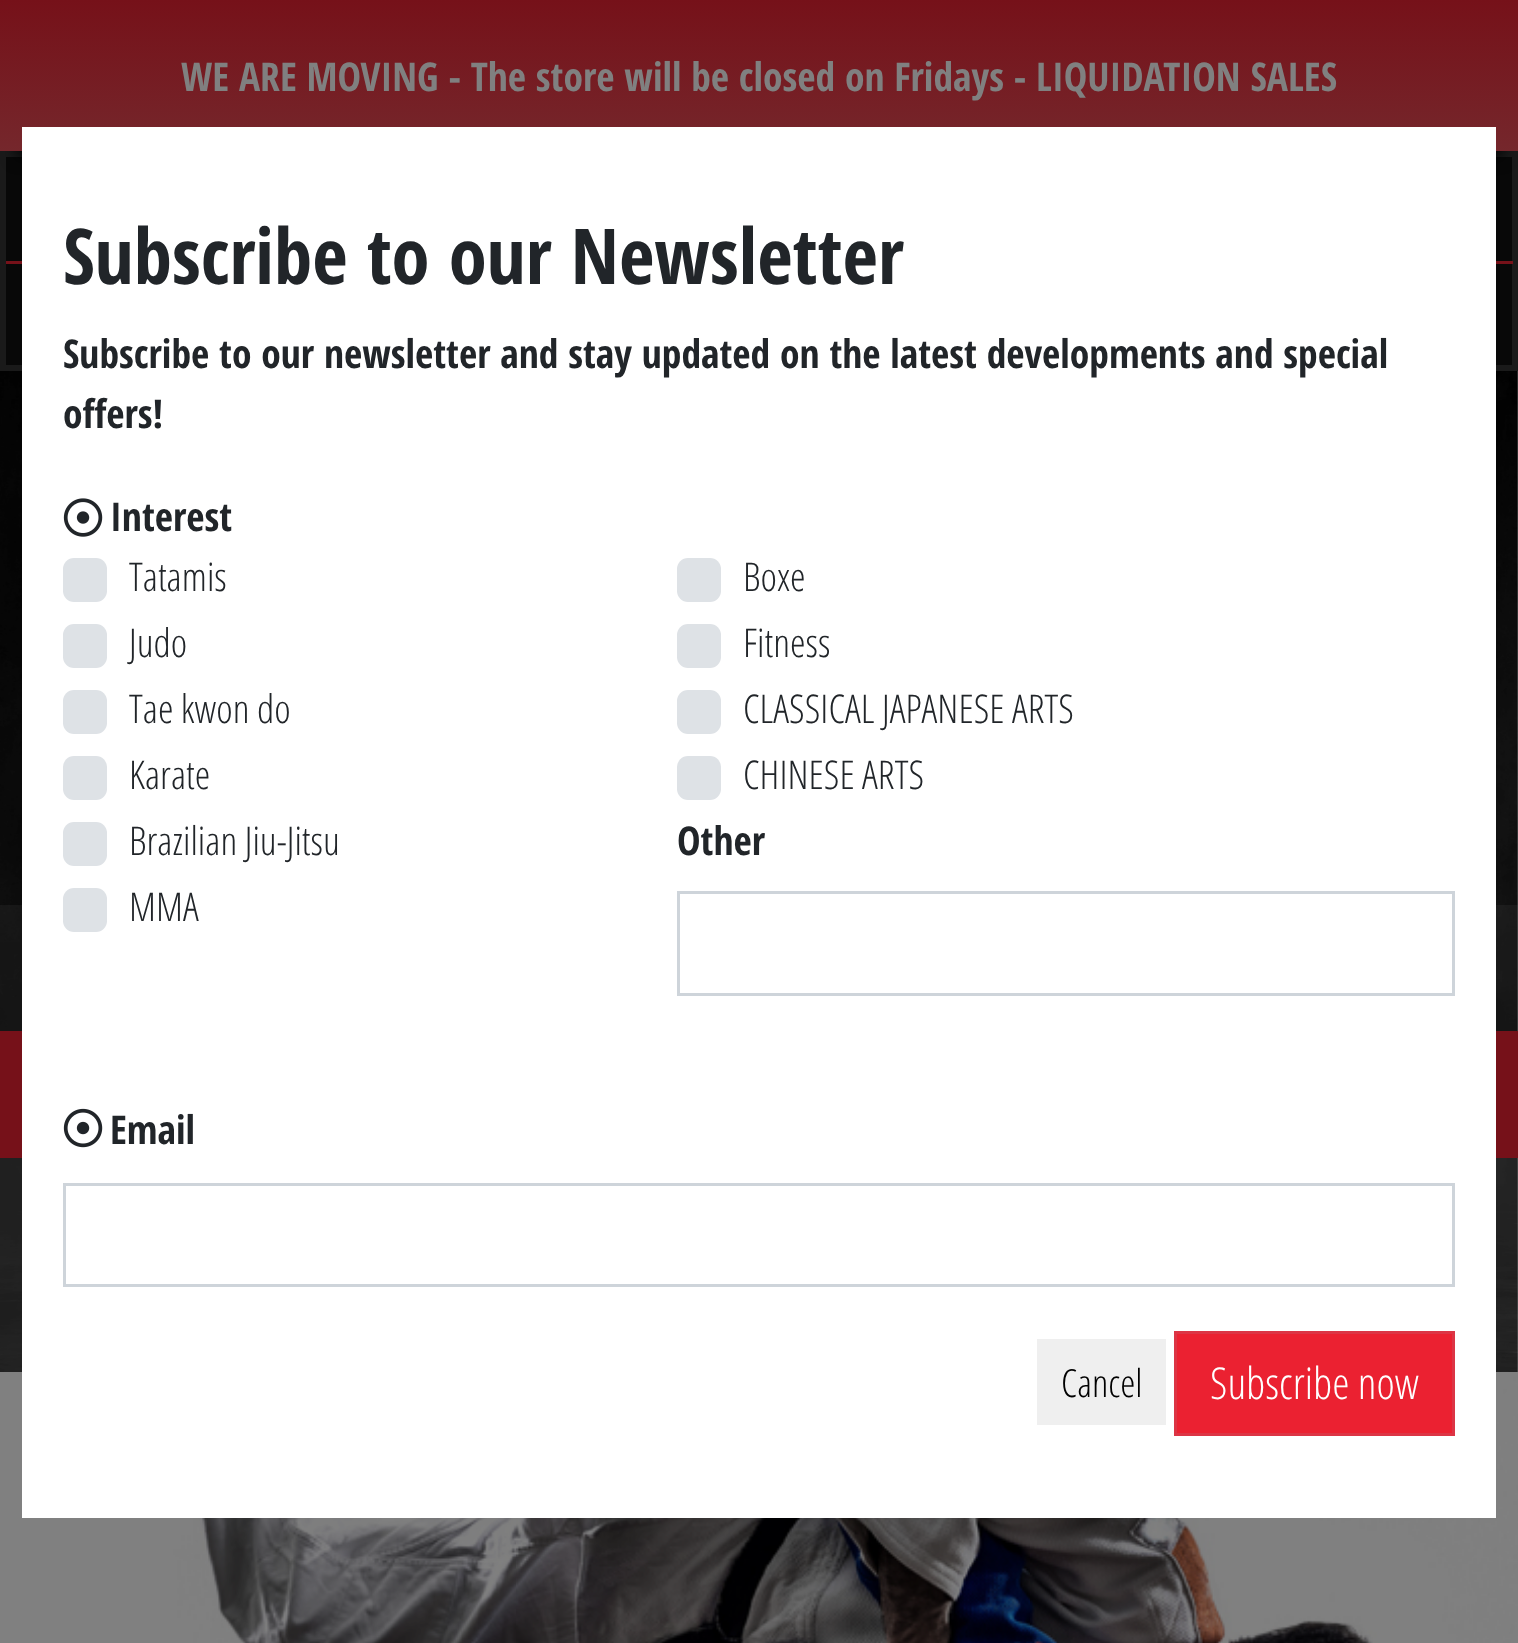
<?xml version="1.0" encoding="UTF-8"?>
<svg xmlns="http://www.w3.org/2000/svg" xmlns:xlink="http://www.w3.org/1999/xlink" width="1518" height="1643">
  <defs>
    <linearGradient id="g1" gradientUnits="userSpaceOnUse" x1="759" y1="0" x2="759" y2="151"><stop offset="0" stop-color="#761119" /><stop offset="1" stop-color="#75272c" /></linearGradient>
  </defs>
  <rect width="100%" height="100%" fill="#ffffff" />
  <image x="0" y="371" width="1518" height="1001" xlink:href="image1.png" />
  <rect x="3" y="154" width="1512" height="214" fill="#080808" stroke="#1a1a1a" stroke-width="6" />
  <rect x="17" y="39" width="1485" height="118" fill="#000000" filter="blur(8px)" />
  <rect width="1518" height="151" fill="url(#g1)" />
  <rect x="6" y="261" width="1507" height="3" fill="#761119" />
  <rect y="905" width="22" height="126" fill="#808080" fill-opacity="0.1" />
  <rect x="1496" y="905" width="22" height="126" fill="#808080" fill-opacity="0.1" />
  <rect y="1031" width="1518" height="127" fill="#761119" />
  <rect y="1158" width="1518" height="214" fill="#808080" fill-opacity="0.2" />
  <image x="0" y="1372" width="1518" height="271" xlink:href="image2.png" />
  <rect x="22" y="127" width="1474" height="1391" fill="#ffffff" />
  <image x="63" y="498" width="40" height="39" xlink:href="image3.png" />
  <rect x="63" y="558" width="44" height="44" rx="11" fill="#dee2e6" />
  <rect x="63" y="624" width="44" height="44" rx="11" fill="#dee2e6" />
  <rect x="63" y="690" width="44" height="44" rx="11" fill="#dee2e6" />
  <rect x="63" y="756" width="44" height="44" rx="11" fill="#dee2e6" />
  <rect x="63" y="822" width="44" height="44" rx="11" fill="#dee2e6" />
  <rect x="63" y="888" width="44" height="44" rx="11" fill="#dee2e6" />
  <rect x="677" y="558" width="44" height="44" rx="11" fill="#dee2e6" />
  <rect x="677" y="624" width="44" height="44" rx="11" fill="#dee2e6" />
  <rect x="677" y="690" width="44" height="44" rx="11" fill="#dee2e6" />
  <rect x="677" y="756" width="44" height="44" rx="11" fill="#dee2e6" />
  <rect x="678.5" y="892.5" width="775" height="102" fill="none" stroke="#ced4da" stroke-width="3" />
  <image x="63" y="1108" width="40" height="40" xlink:href="image4.png" />
  <rect x="64.5" y="1184.5" width="1389" height="101" fill="none" stroke="#ced4da" stroke-width="3" />
  <rect x="1037" y="1339" width="129" height="86" fill="#efefef" />
  <rect x="1175.5" y="1332.5" width="278" height="102" fill="#eb2131" stroke="#dc3545" stroke-width="3" />
  <text x="181" y="91" style="font-family: Open Sans Condensed; font-size: 39.6px; font-weight: bold; fill: #808080">WE ARE MOVING - The store will be closed on Fridays - LIQUIDATION SALES</text>
  <text x="63" y="284" style="font-family: Open Sans Condensed; font-size: 77px; font-weight: bold; fill: #212529">Subscribe to our Newsletter</text>
  <text x="63" y="368" style="font-family: Open Sans Condensed; font-size: 39.6px; font-weight: bold; fill: #212529">Subscribe to our newsletter and stay updated on the latest developments and special</text>
  <text x="63" y="428" style="font-family: Open Sans Condensed; font-size: 39.6px; font-weight: bold; fill: #212529">offers!</text>
  <text x="110" y="531" style="font-family: Open Sans Condensed; font-size: 39.6px; font-weight: bold; fill: #212529">Interest</text>
  <text x="129" y="591" style="font-family: Open Sans Condensed; font-size: 39.6px; font-weight: 300; fill: #212529">Tatamis</text>
  <text x="129" y="657" style="font-family: Open Sans Condensed; font-size: 39.6px; font-weight: 300; fill: #212529">Judo</text>
  <text x="129" y="723" style="font-family: Open Sans Condensed; font-size: 39.6px; font-weight: 300; fill: #212529">Tae kwon do</text>
  <text x="129" y="789" style="font-family: Open Sans Condensed; font-size: 39.6px; font-weight: 300; fill: #212529">Karate</text>
  <text x="129" y="855" style="font-family: Open Sans Condensed; font-size: 39.6px; font-weight: 300; fill: #212529">Brazilian Jiu-Jitsu</text>
  <text x="129" y="921" style="font-family: Open Sans Condensed; font-size: 39.6px; font-weight: 300; fill: #212529">MMA</text>
  <text x="743" y="591" style="font-family: Open Sans Condensed; font-size: 39.6px; font-weight: 300; fill: #212529">Boxe</text>
  <text x="743" y="657" style="font-family: Open Sans Condensed; font-size: 39.6px; font-weight: 300; fill: #212529">Fitness</text>
  <text x="743" y="723" style="font-family: Open Sans Condensed; font-size: 39.6px; font-weight: 300; fill: #212529">CLASSICAL JAPANESE ARTS</text>
  <text x="743" y="789" style="font-family: Open Sans Condensed; font-size: 39.6px; font-weight: 300; fill: #212529">CHINESE ARTS</text>
  <text x="677" y="855" style="font-family: Open Sans Condensed; font-size: 39.6px; font-weight: bold; fill: #212529">Other</text>
  <text x="110" y="1144" style="font-family: Open Sans Condensed; font-size: 39.6px; font-weight: bold; fill: #212529">Email</text>
  <text x="1061" y="1397" style="font-family: Open Sans Condensed; font-size: 38.5px; font-weight: 300; fill: #000000">Cancel</text>
  <text x="1210" y="1399" style="font-family: Open Sans Condensed; font-size: 44px; font-weight: 300; fill: #ffffff">Subscribe now</text>
</svg>
